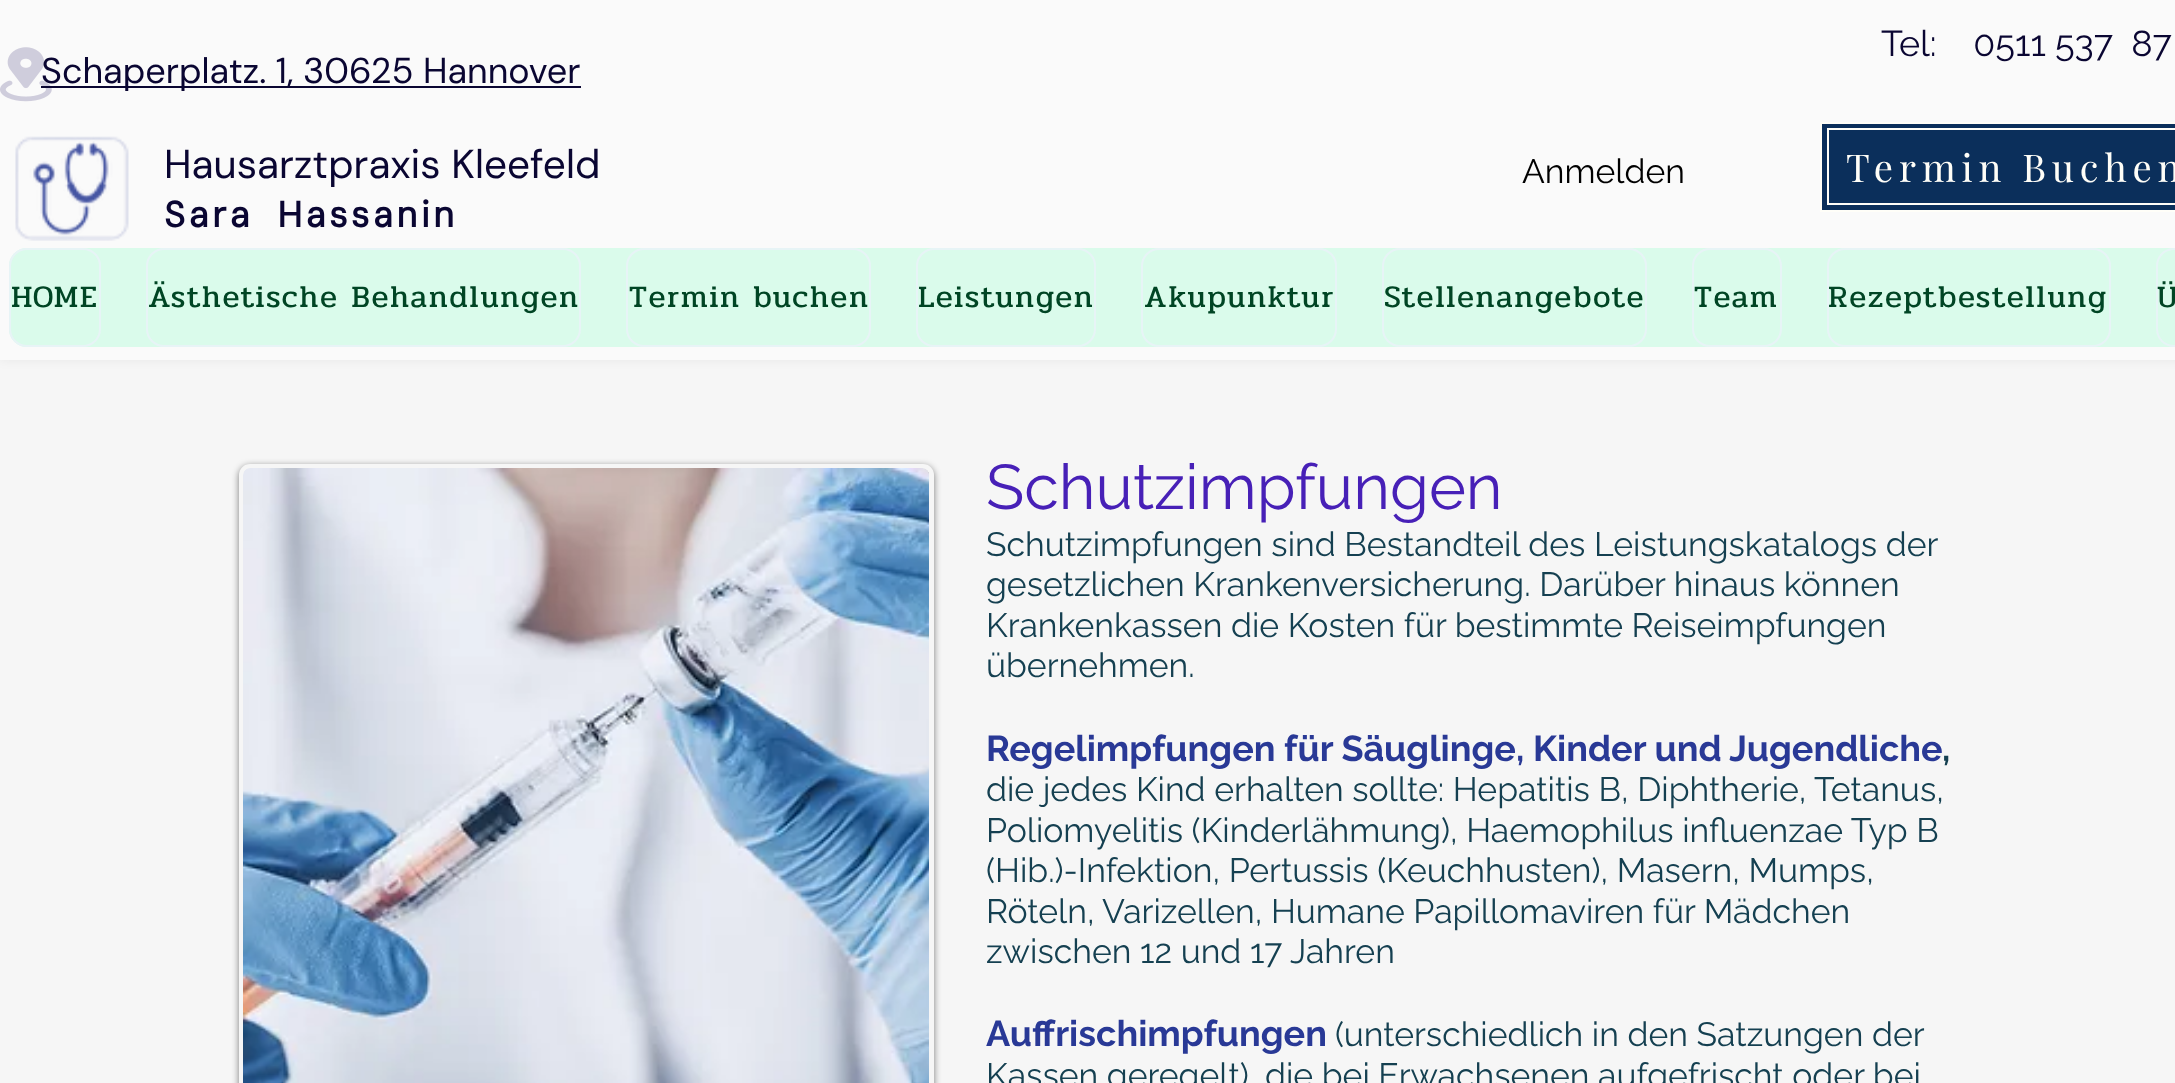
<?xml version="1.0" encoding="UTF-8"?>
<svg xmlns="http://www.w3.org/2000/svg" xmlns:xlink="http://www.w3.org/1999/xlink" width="2175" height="1083">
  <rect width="100%" height="100%" fill="#f6f6f6" />
  <rect width="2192" height="360" fill="#000000" fill-opacity="0.06" filter="blur(5.5px)" />
  <rect width="2175" height="360" fill="#fafafa" />
  <image x="0" y="47" width="52" height="55" xlink:href="image1.png" />
  <rect x="41" y="86" width="540" height="2" fill="#0a0632" />
  <image x="15" y="136" width="114" height="105" xlink:href="image2.png" />
  <rect x="1821" y="123" width="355" height="88" fill="#0b2f5b" stroke="#fffef8" stroke-width="2" />
  <rect x="1828" y="129" width="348" height="75" fill="none" stroke="#fffef8" stroke-width="2" />
  <rect x="9" y="248" width="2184" height="99" rx="18" fill="#dafbeb" />
  <rect x="10" y="249" width="90" height="97" rx="17" fill="none" stroke="#e7f4f6" stroke-width="2" />
  <rect x="147" y="249" width="433" height="97" rx="17" fill="none" stroke="#e7f4f6" stroke-width="2" />
  <rect x="627" y="249" width="243" height="97" rx="17" fill="none" stroke="#e7f4f6" stroke-width="2" />
  <rect x="917" y="249" width="178" height="97" rx="17" fill="none" stroke="#e7f4f6" stroke-width="2" />
  <rect x="1142" y="249" width="194" height="97" rx="17" fill="none" stroke="#e7f4f6" stroke-width="2" />
  <rect x="1383" y="249" width="263" height="97" rx="17" fill="none" stroke="#e7f4f6" stroke-width="2" />
  <rect x="1693" y="249" width="88" height="97" rx="17" fill="none" stroke="#e7f4f6" stroke-width="2" />
  <rect x="1828" y="249" width="282" height="97" rx="17" fill="none" stroke="#e7f4f6" stroke-width="2" />
  <path d="M 2174 248 c -10 0 -18 8 -18 18 v 63 c 0 10 8 18 18 18 h 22 c 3 0 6 -1 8 -2 h -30 c -9 0 -16 -7 -16 -16 v -63 c 0 -9 7 -16 16 -16 h 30 c -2 -1 -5 -2 -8 -2 z" fill="#e7f4f6" />
  <rect x="239" y="466" width="695" height="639" rx="11" fill="#000000" fill-opacity="0.5" filter="blur(3.5px)" />
  <rect x="241.5" y="466.5" width="690" height="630" rx="8.5" fill="none" stroke="#f6f6f6" stroke-width="5" />
  <image x="243" y="468" width="686" height="615" xlink:href="image3.png" />
  <text x="1881" y="56" style="font-family: Raleway; font-size: 36px; fill: #0a0632" xml:space="preserve">Tel:    0511 537  87</text>
  <text x="41" y="83" style="font-family: DM Sans; font-size: 36px; fill: #0a0632">Schaperplatz. 1, 30625 Hannover</text>
  <text x="164" y="178" style="font-family: 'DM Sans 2'; font-size: 40.5px; fill: #0a0632">Hausarztpraxis Kleefeld</text>
  <text x="164" y="227" word-spacing="11" style="font-family: DM Sans; font-size: 36px; font-weight: bold; letter-spacing: 3.6px; fill: #0a0632">Sara Hassanin</text>
  <text x="1522" y="183" style="font-family: Raleway; font-size: 33.75px; fill: #000000">Anmelden</text>
  <text x="1846" y="182" style="font-family: Playfair Display; font-size: 38.25px; letter-spacing: 5.75px; fill: #fffef8">Termin Buchen</text>
  <text x="11" y="307" style="font-family: Pridi; font-size: 31.5px; letter-spacing: 1.6px; fill: #004524">HOME</text>
  <text x="148" y="307" style="font-family: Pridi; font-size: 31.5px; letter-spacing: 1.6px; fill: #004524">Ästhetische Behandlungen</text>
  <text x="629" y="307" style="font-family: Pridi; font-size: 31.5px; letter-spacing: 1.6px; fill: #004524">Termin buchen</text>
  <text x="918" y="307" style="font-family: Pridi; font-size: 31.5px; letter-spacing: 1.6px; fill: #004524">Leistungen</text>
  <text x="1144" y="307" style="font-family: Pridi; font-size: 31.5px; letter-spacing: 1.6px; fill: #004524">Akupunktur</text>
  <text x="1384" y="307" style="font-family: Pridi; font-size: 31.5px; letter-spacing: 1.6px; fill: #004524">Stellenangebote</text>
  <text x="1694" y="307" style="font-family: Pridi; font-size: 31.5px; letter-spacing: 1.6px; fill: #004524">Team</text>
  <text x="1828" y="307" style="font-family: Pridi; font-size: 31.5px; letter-spacing: 1.6px; fill: #004524">Rezeptbestellung</text>
  <text x="2157" y="307" style="font-family: Pridi; font-size: 31.5px; letter-spacing: 1.6px; fill: #004524">Ü</text>
  <text x="986" y="509" style="font-family: Raleway; font-size: 63px; fill: #4720b7">Schutzimpfungen</text>
  <text x="986" y="556" style="font-family: Raleway; font-size: 33.75px; fill: #154051">Schutzimpfungen sind Bestandteil des Leistungskatalogs der</text>
  <text x="986" y="596" style="font-family: Raleway; font-size: 33.75px; fill: #154051">gesetzlichen Krankenversicherung. Darüber hinaus können</text>
  <text x="986" y="637" style="font-family: Raleway; font-size: 33.75px; fill: #154051">Krankenkassen die Kosten für bestimmte Reiseimpfungen</text>
  <text x="986" y="677" style="font-family: Raleway; font-size: 33.75px; fill: #154051">übernehmen.</text>
  <text x="986" y="761" style="font-family: Raleway; font-size: 36px; font-weight: bold; fill: #293996">Regelimpfungen für Säuglinge, Kinder und Jugendliche</text>
  <text x="1942" y="761" style="font-family: Raleway; font-size: 36px; font-weight: bold; fill: #154051">,</text>
  <text x="986" y="801" style="font-family: Raleway; font-size: 33.75px; fill: #154051">die jedes Kind erhalten sollte: Hepatitis B, Diphtherie, Tetanus,</text>
  <text x="986" y="842" style="font-family: Raleway; font-size: 33.75px; fill: #154051">Poliomyelitis (Kinderlähmung), Haemophilus influenzae Typ B</text>
  <text x="986" y="882" style="font-family: Raleway; font-size: 33.75px; fill: #154051">(Hib.)-Infektion, Pertussis (Keuchhusten), Masern, Mumps,</text>
  <text x="986" y="923" style="font-family: Raleway; font-size: 33.75px; fill: #154051">Röteln, Varizellen, Humane Papillomaviren für Mädchen</text>
  <text x="986" y="963" style="font-family: Raleway; font-size: 33.75px; fill: #154051">zwischen 12 und 17 Jahren</text>
  <text x="986" y="1046" style="font-family: Raleway; font-size: 36px; font-weight: bold; fill: #293996">Auffrischimpfungen</text>
  <text x="1335" y="1046" style="font-family: Raleway; font-size: 33.75px; fill: #154051">(unterschiedlich in den Satzungen der</text>
  <text x="986" y="1087" style="font-family: Raleway; font-size: 33.75px; fill: #154051">Kassen geregelt), die bei Erwachsenen aufgefrischt oder bei</text>
</svg>
